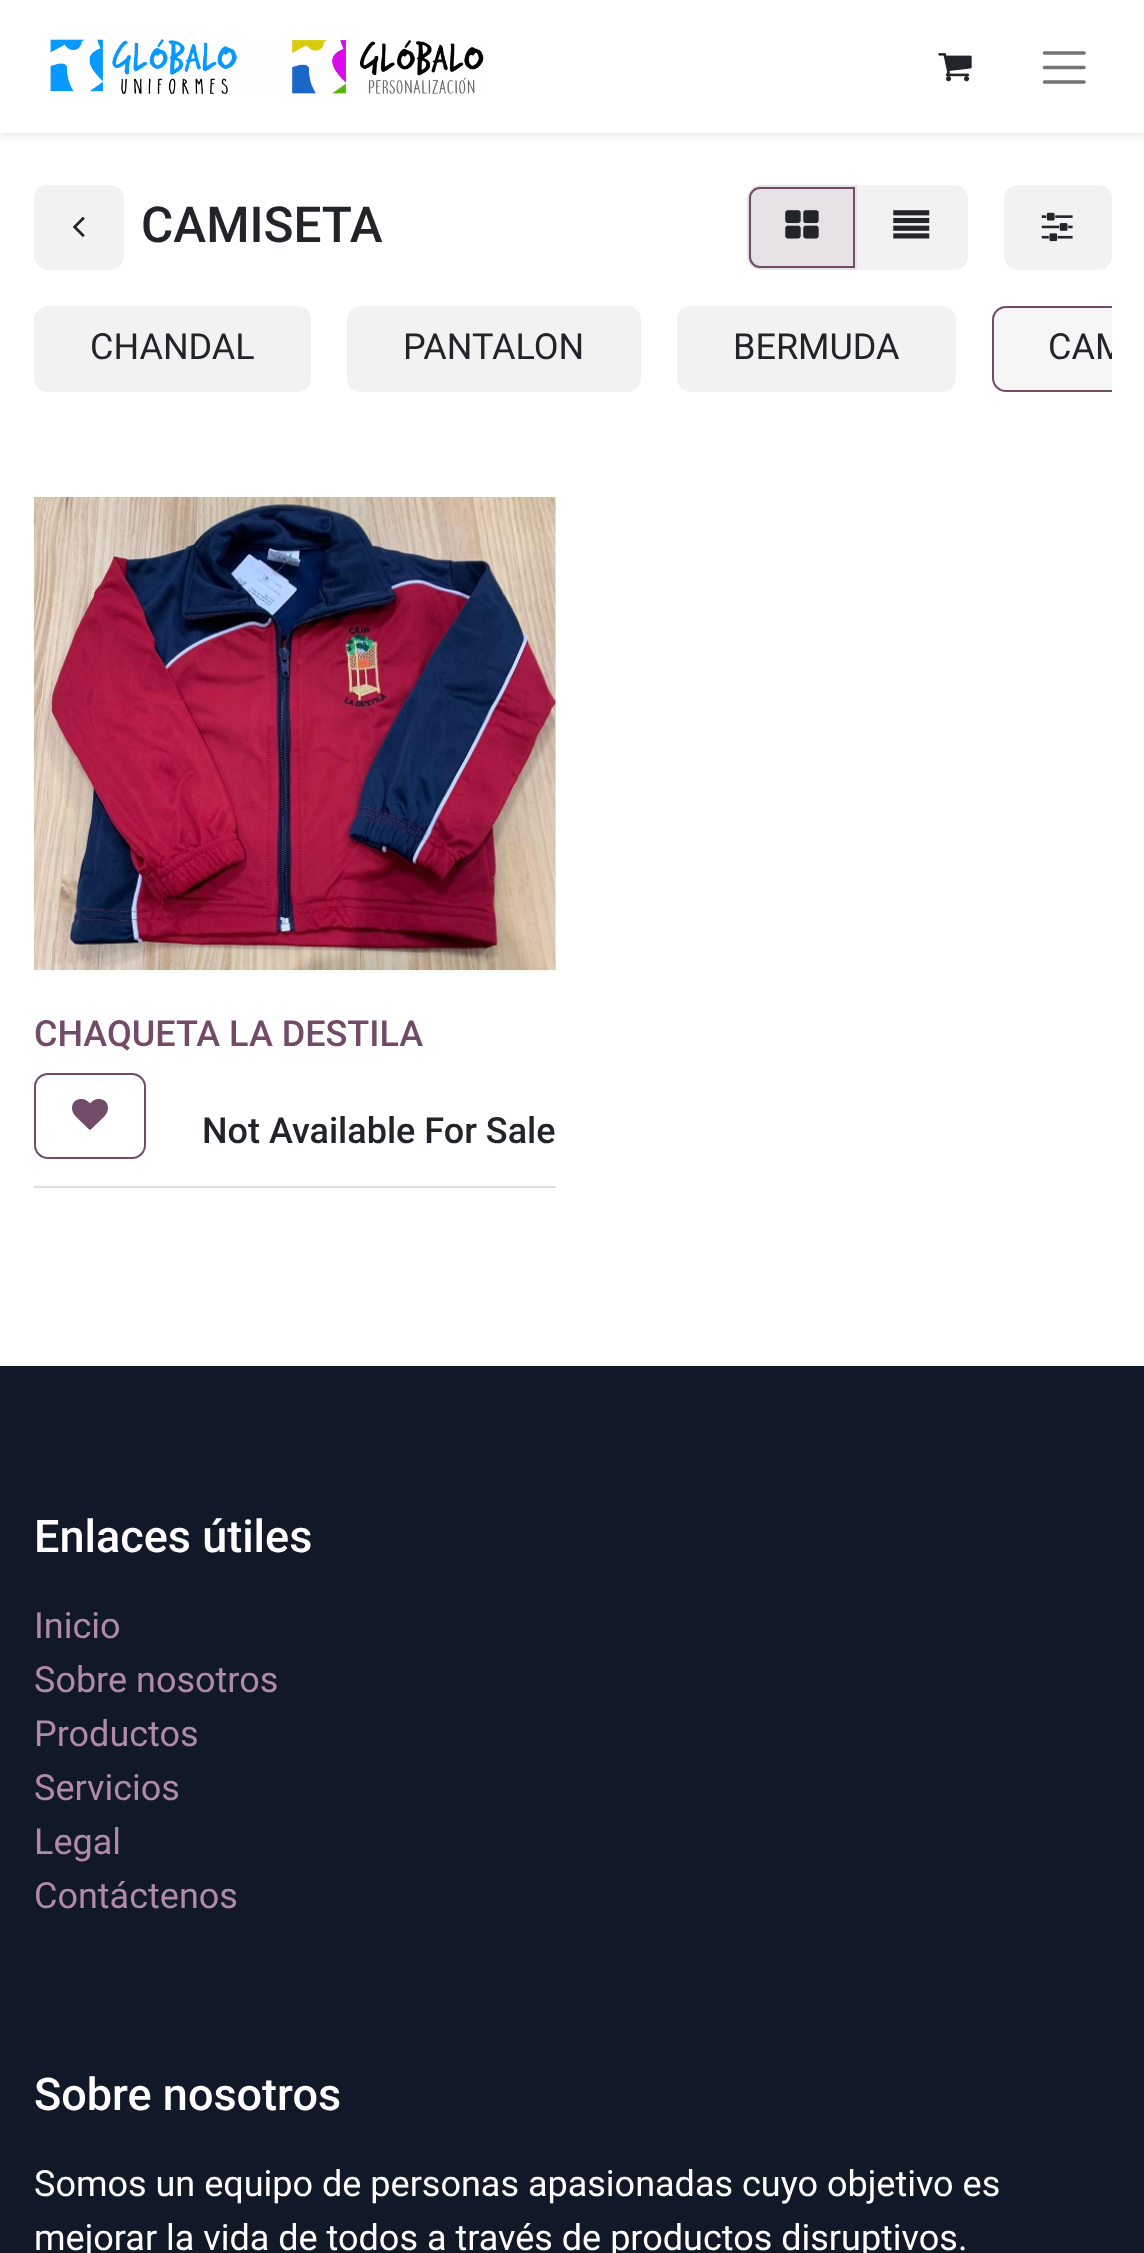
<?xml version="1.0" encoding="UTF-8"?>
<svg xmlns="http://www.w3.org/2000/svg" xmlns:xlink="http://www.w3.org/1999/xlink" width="1144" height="2253">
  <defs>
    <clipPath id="clip1"><rect x="34" y="306" width="1078" height="95" /></clipPath>
  </defs>
  <rect width="100%" height="100%" fill="#ffffff" />
  <rect y="2" width="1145" height="133" fill="#000000" fill-opacity="0.1" filter="blur(3.5px)" />
  <rect width="1144" height="133" fill="#ffffff" />
  <image x="50" y="39" width="434" height="55" xlink:href="image1.png" />
  <image x="938" y="53" width="34" height="29" xlink:href="image2.png" />
  <path d="M 1044.5 53 h 39.5 m -39.5 14.5 h 39.5 m -39.5 14.5 h 39.5" fill="none" stroke="#737373" stroke-width="3.6" stroke-linecap="round" />
  <rect x="35" y="186" width="88" height="83" rx="13" fill="#f3f2f2" stroke="#f3f2f2" stroke-width="2" />
  <image x="73" y="217" width="12" height="20" xlink:href="image3.png" />
  <path d="M 856 186 h 98 c 7 0 13 6 13 13 v 57 c 0 7 -6 13 -13 13 h -98 z" fill="#f3f2f2" stroke="#f3f2f2" stroke-width="2" />
  <path d="M 761 185 h 96 v 85 h -96 c -7.5 0 -14 -6.5 -14 -14 v -57 c 0 -7.5 6.5 -14 14 -14 z" fill="#e6e1e4" />
  <path d="M 760 188 h 94 v 79 h -94 c -5.5 0 -10 -4.5 -10 -10 v -59 c 0 -5.5 4.5 -10 10 -10 z" fill="none" stroke="#714b67" stroke-width="2" />
  <image x="785" y="210" width="34" height="29" xlink:href="image4.png" />
  <image x="893" y="210" width="37" height="29" xlink:href="image5.png" />
  <rect x="1005" y="186" width="106" height="83" rx="13" fill="#f3f2f2" stroke="#f3f2f2" stroke-width="2" />
  <image x="1041" y="212" width="32" height="30" xlink:href="image6.png" />
  <rect x="35" y="307" width="275" height="84" rx="13" fill="#f3f2f2" stroke="#f3f2f2" stroke-width="2" />
  <rect x="348" y="307" width="292" height="84" rx="13" fill="#f3f2f2" stroke="#f3f2f2" stroke-width="2" />
  <rect x="678" y="307" width="277" height="84" rx="13" fill="#f3f2f2" stroke="#f3f2f2" stroke-width="2" />
  <path d="M 1006 306 h 106 v 86 h -106 c -7.5 0 -14 -6.5 -14 -14 v -58 c 0 -7.5 6.5 -14 14 -14 z" fill="#f5f5f5" />
  <g clip-path="url(#clip1)">
    <rect x="993" y="307" width="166" height="84" rx="13" fill="none" stroke="#714b67" stroke-width="2" />
  </g>
  <rect x="34" y="1186" width="522" height="2" fill="#dededf" />
  <image x="33" y="496" width="523" height="476" xlink:href="image7.png" />
  <rect x="35" y="1074" width="110" height="84" rx="13" fill="none" stroke="#714b67" stroke-width="2" />
  <image x="72" y="1099" width="36" height="31" xlink:href="image8.png" />
  <rect y="1366" width="1144" height="887" fill="#111827" />
  <text x="141" y="242" style="font-family: Roboto; font-size: 49.5px; font-weight: 500; fill: #212529">CAMISETA</text>
  <text x="90" y="359" style="font-family: Roboto; font-size: 36px; fill: #212529">CHANDAL</text>
  <text x="403" y="359" style="font-family: Roboto; font-size: 36px; fill: #212529">PANTALON</text>
  <text x="733" y="359" style="font-family: Roboto; font-size: 36px; fill: #212529">BERMUDA</text>
  <g clip-path="url(#clip1)">
    <text x="1048" y="359" style="font-family: Roboto; font-size: 36px; fill: #212529">CAM</text>
  </g>
  <text x="34" y="1046" style="font-family: Roboto; font-size: 36px; font-weight: 500; fill: #714b67">CHAQUETA LA DESTILA</text>
  <text x="202" y="1143" style="font-family: Roboto; font-size: 36px; font-weight: 500; fill: #212529">Not Available For Sale</text>
  <text x="34" y="1552" style="font-family: Roboto; font-size: 45px; font-weight: 500; fill: #ffffff">Enlaces útiles</text>
  <text x="34" y="1638" style="font-family: Roboto; font-size: 36px; fill: #b18aa7">Inicio</text>
  <text x="34" y="1692" style="font-family: Roboto; font-size: 36px; fill: #b18aa7">Sobre nosotros</text>
  <text x="34" y="1746" style="font-family: Roboto; font-size: 36px; fill: #b18aa7">Productos</text>
  <text x="34" y="1800" style="font-family: Roboto; font-size: 36px; fill: #b18aa7">Servicios</text>
  <text x="34" y="1854" style="font-family: Roboto; font-size: 36px; fill: #b18aa7">Legal</text>
  <text x="34" y="1908" style="font-family: Roboto; font-size: 36px; fill: #b18aa7">Contáctenos</text>
  <text x="34" y="2110" style="font-family: Roboto; font-size: 45px; font-weight: 500; fill: #ffffff">Sobre nosotros</text>
  <text x="34" y="2196" style="font-family: Roboto; font-size: 36px; fill: #ffffff">Somos un equipo de personas apasionadas cuyo objetivo es</text>
  <text x="34" y="2250" style="font-family: Roboto; font-size: 36px; fill: #ffffff">mejorar la vida de todos a través de productos disruptivos.</text>
</svg>
